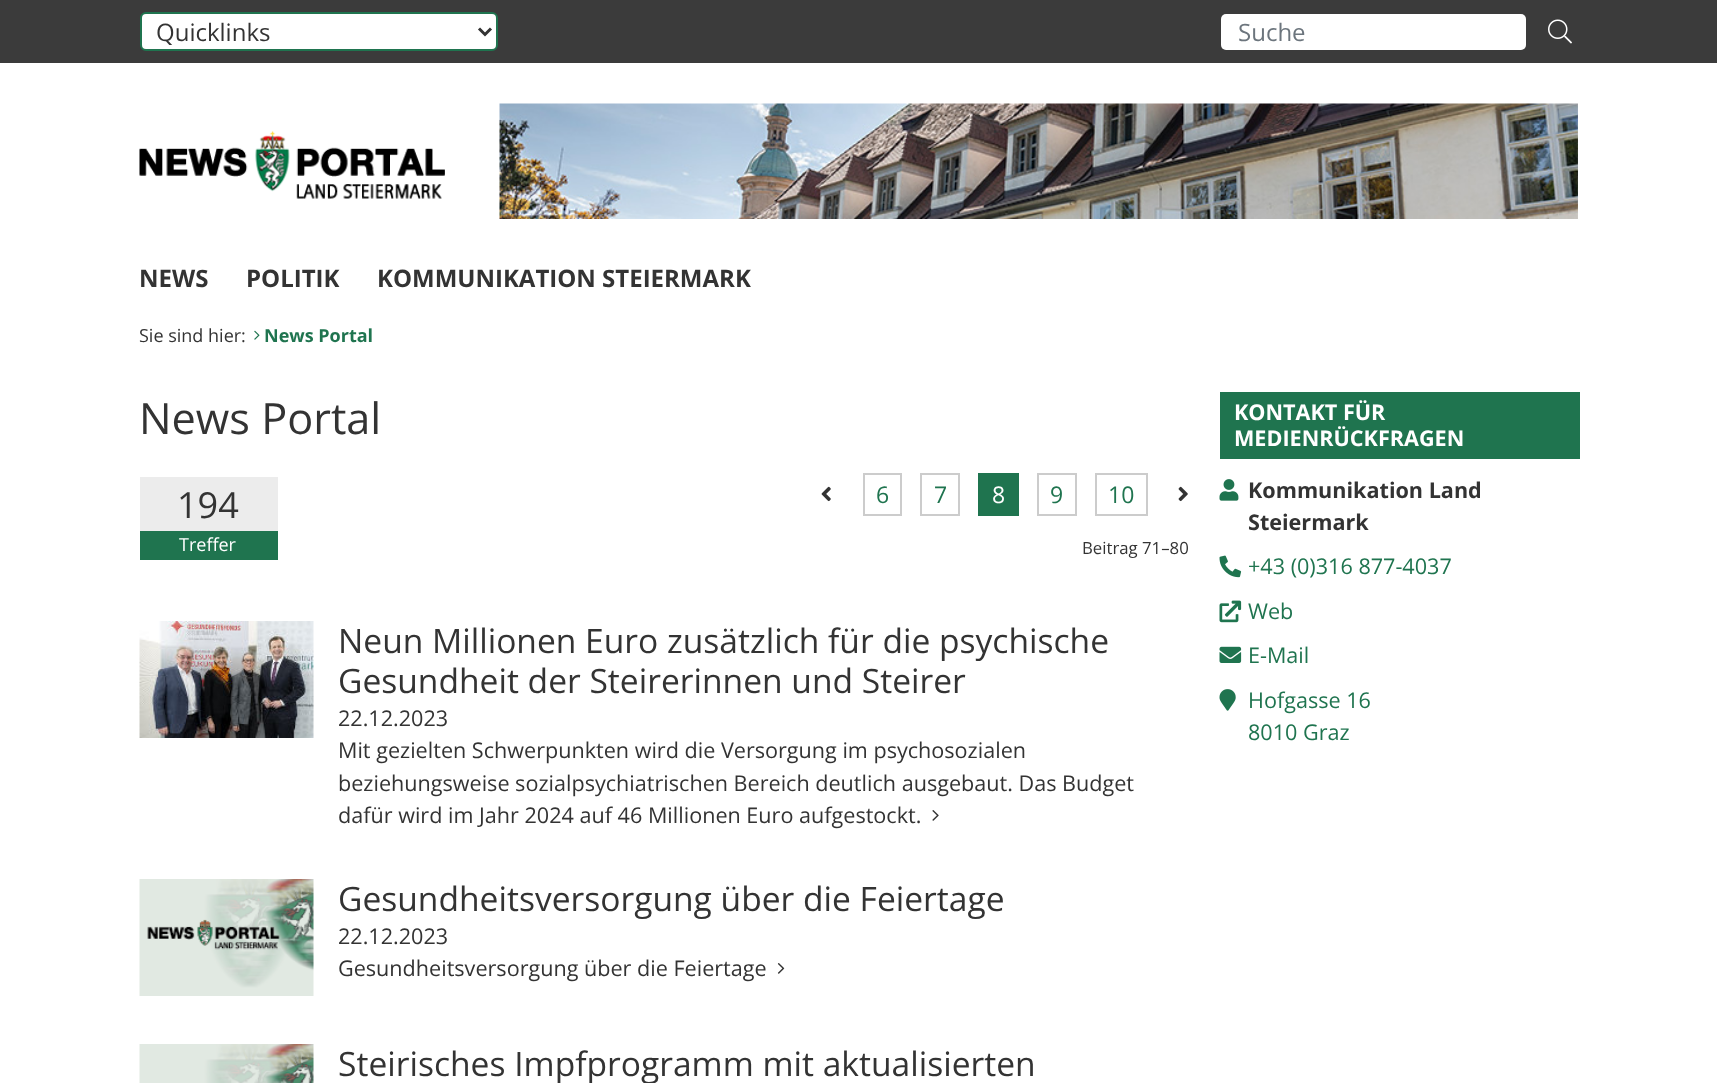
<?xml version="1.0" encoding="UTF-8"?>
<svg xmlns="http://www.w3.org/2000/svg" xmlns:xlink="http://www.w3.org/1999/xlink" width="1717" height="1083">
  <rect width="100%" height="100%" fill="#ffffff" />
  <rect width="1717" height="63" fill="#3b3b3b" />
  <rect x="141" y="13" width="356" height="37" rx="5" fill="#ffffff" stroke="#1f744f" stroke-width="2" />
  <path d="M 479 28.5 l 6 6 l 6 -6" fill="none" stroke="#333333" stroke-width="3" />
  <rect x="1221" y="14" width="305" height="36" rx="5" fill="#ffffff" />
  <image x="1548" y="19" width="24" height="25" xlink:href="image1.png" />
  <image x="139" y="131" width="306" height="68" xlink:href="image2.png" />
  <image x="499" y="103" width="1079" height="116" xlink:href="image3.png" />
  <image x="254" y="330" width="6" height="10" xlink:href="image4.png" />
  <rect x="140" y="477" width="138" height="54" fill="#ececec" />
  <rect x="140" y="531" width="138" height="29" fill="#1f744f" />
  <image x="821" y="486" width="10" height="16" xlink:href="image5.png" />
  <rect x="864" y="474" width="37" height="41" fill="none" stroke="#cccccc" stroke-width="2" />
  <rect x="921" y="474" width="38" height="41" fill="none" stroke="#cccccc" stroke-width="2" />
  <rect x="978" y="473" width="41" height="43" fill="#1f744f" />
  <rect x="1038" y="474" width="38" height="41" fill="none" stroke="#cccccc" stroke-width="2" />
  <rect x="1096" y="474" width="51" height="41" fill="none" stroke="#cccccc" stroke-width="2" />
  <image x="1178" y="486" width="10" height="16" xlink:href="image6.png" />
  <image x="139" y="621" width="175" height="117" xlink:href="image7.png" />
  <image x="932" y="810" width="7" height="11" xlink:href="image8.png" />
  <image x="139" y="879" width="175" height="117" xlink:href="image9.png" />
  <image x="777" y="963" width="8" height="11" xlink:href="image10.png" />
  <image x="139" y="1044" width="175" height="39" xlink:href="image11.png" />
  <rect x="1220" y="392" width="360" height="67" fill="#1f744f" />
  <image x="1219" y="479" width="20" height="22" xlink:href="image12.png" />
  <image x="1219" y="555" width="23" height="23" xlink:href="image13.png" />
  <image x="1219" y="600" width="23" height="23" xlink:href="image14.png" />
  <image x="1219" y="646" width="23" height="17" xlink:href="image15.png" />
  <image x="1219" y="689" width="17" height="22" xlink:href="image16.png" />
  <text x="156" y="41" style="font-family: Open Sans; font-size: 24px; fill: #333333">Quicklinks</text>
  <text x="1238" y="41" style="font-family: Open Sans; font-size: 24px; fill: #6c757d">Suche</text>
  <text x="139" y="287" style="font-family: Open Sans; font-size: 24px; font-weight: bold; fill: #333333">NEWS</text>
  <text x="246" y="287" style="font-family: Open Sans; font-size: 24px; font-weight: bold; fill: #333333">POLITIK</text>
  <text x="377" y="287" style="font-family: Open Sans; font-size: 24px; font-weight: bold; fill: #333333">KOMMUNIKATION STEIERMARK</text>
  <text x="139" y="342" style="font-family: Open Sans; font-size: 18px; fill: #333333">Sie sind hier:</text>
  <text x="264" y="342" style="font-family: Open Sans; font-size: 18px; font-weight: bold; fill: #1f744f">News Portal</text>
  <text x="139" y="434" style="font-family: Open Sans; font-size: 43.25px; fill: #333333">News Portal</text>
  <text x="177" y="518" style="font-family: Open Sans; font-size: 36px; fill: #333333">194</text>
  <text x="179" y="551" style="font-family: Open Sans; font-size: 18px; fill: #ffffff">Treffer</text>
  <text x="876" y="503" style="font-family: Open Sans; font-size: 23px; fill: #1f744f">6</text>
  <text x="934" y="503" style="font-family: Open Sans; font-size: 23px; fill: #1f744f">7</text>
  <text x="992" y="503" style="font-family: Open Sans; font-size: 23px; fill: #ffffff">8</text>
  <text x="1050" y="503" style="font-family: Open Sans; font-size: 23px; fill: #1f744f">9</text>
  <text x="1108" y="503" style="font-family: Open Sans; font-size: 23px; fill: #1f744f">10</text>
  <text x="1082" y="554" style="font-family: Open Sans; font-size: 16.75px; fill: #333333">Beitrag 71–80</text>
  <text x="338" y="653" style="font-family: Open Sans; font-size: 33.6px; fill: #333333">Neun Millionen Euro zusätzlich für die psychische</text>
  <text x="338" y="693" style="font-family: Open Sans; font-size: 33.6px; fill: #333333">Gesundheit der Steirerinnen und Steirer</text>
  <text x="338" y="726" style="font-family: Open Sans; font-size: 21.6px; fill: #333333">22.12.2023</text>
  <text x="338" y="758" style="font-family: Open Sans; font-size: 21.6px; fill: #333333">Mit gezielten Schwerpunkten wird die Versorgung im psychosozialen</text>
  <text x="338" y="791" style="font-family: Open Sans; font-size: 21.6px; fill: #333333">beziehungsweise sozialpsychiatrischen Bereich deutlich ausgebaut. Das Budget</text>
  <text x="338" y="823" style="font-family: Open Sans; font-size: 21.6px; fill: #333333">dafür wird im Jahr 2024 auf 46 Millionen Euro aufgestockt.</text>
  <text x="338" y="911" style="font-family: Open Sans; font-size: 33.6px; fill: #333333">Gesundheitsversorgung über die Feiertage</text>
  <text x="338" y="944" style="font-family: Open Sans; font-size: 21.6px; fill: #333333">22.12.2023</text>
  <text x="338" y="976" style="font-family: Open Sans; font-size: 21.6px; fill: #333333">Gesundheitsversorgung über die Feiertage</text>
  <text x="338" y="1076" style="font-family: Open Sans; font-size: 33.6px; fill: #333333">Steirisches Impfprogramm mit aktualisierten</text>
  <text x="1234" y="420" style="font-family: Open Sans; font-size: 21.6px; font-weight: bold; fill: #ffffff">KONTAKT FÜR</text>
  <text x="1234" y="446" style="font-family: Open Sans; font-size: 21.6px; font-weight: bold; fill: #ffffff">MEDIENRÜCKFRAGEN</text>
  <text x="1248" y="498" style="font-family: Open Sans; font-size: 21.6px; font-weight: bold; fill: #333333">Kommunikation Land</text>
  <text x="1248" y="530" style="font-family: Open Sans; font-size: 21.6px; font-weight: bold; fill: #333333">Steiermark</text>
  <text x="1248" y="574" style="font-family: Open Sans; font-size: 21.6px; fill: #1f744f">+43 (0)316 877-4037</text>
  <text x="1248" y="619" style="font-family: Open Sans; font-size: 21.6px; fill: #1f744f">Web</text>
  <text x="1248" y="663" style="font-family: Open Sans; font-size: 21.6px; fill: #1f744f">E-Mail</text>
  <text x="1248" y="708" style="font-family: Open Sans; font-size: 21.6px; fill: #1f744f">Hofgasse 16</text>
  <text x="1248" y="740" style="font-family: Open Sans; font-size: 21.6px; fill: #1f744f">8010 Graz</text>
</svg>
